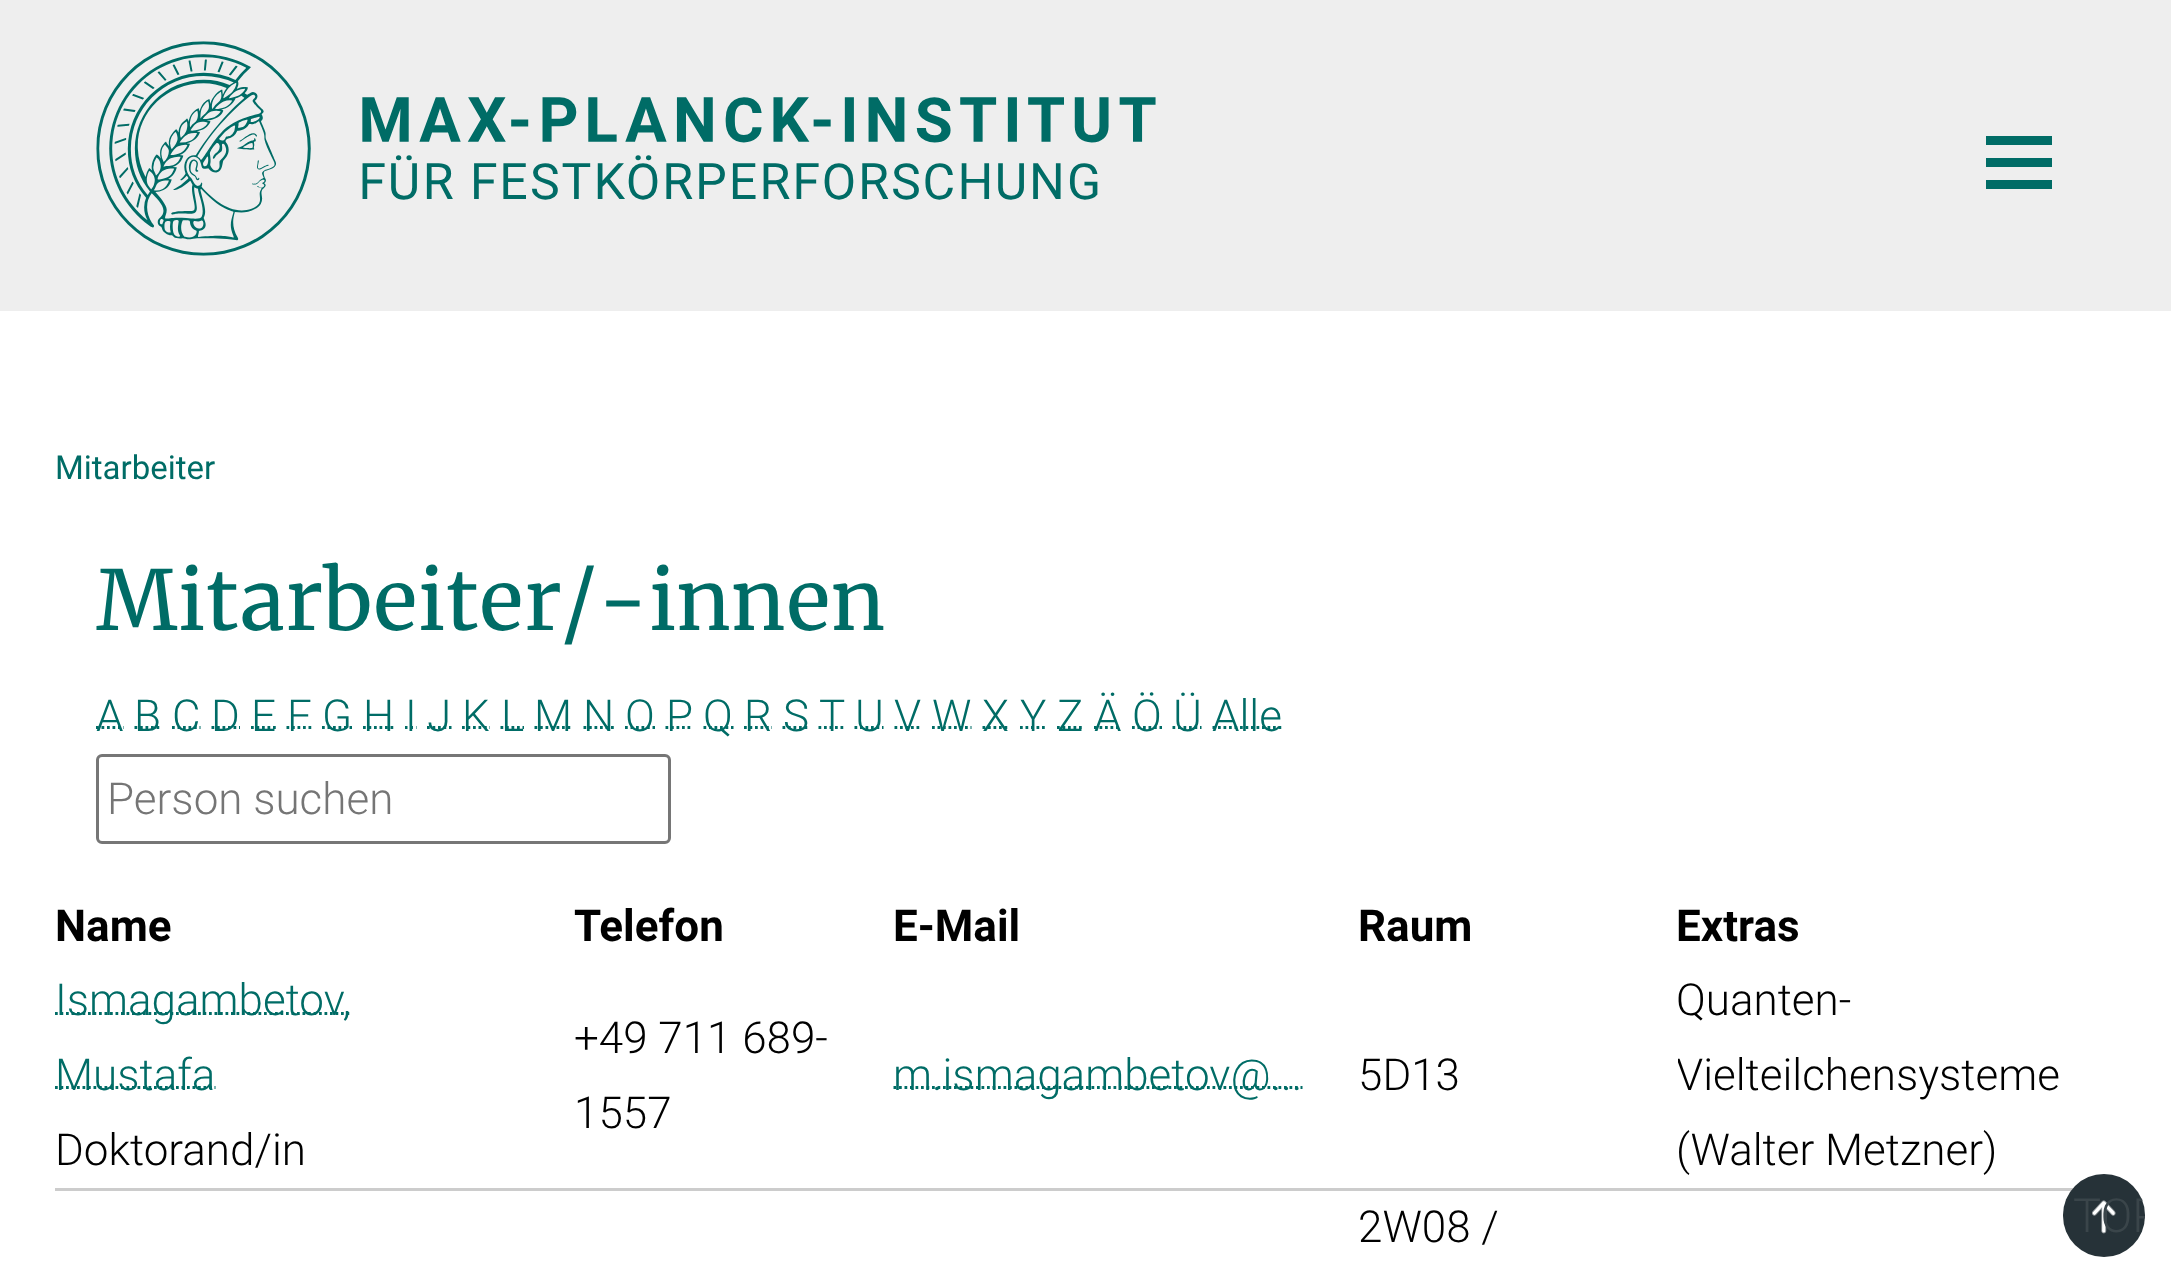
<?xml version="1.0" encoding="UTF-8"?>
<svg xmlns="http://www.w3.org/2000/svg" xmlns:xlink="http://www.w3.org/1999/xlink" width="2171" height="1283">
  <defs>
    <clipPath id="clip1"><rect x="1678" y="963" width="440" height="225" /></clipPath>
    <clipPath id="clip2"><rect x="2063" y="1174" width="82" height="83" rx="41" /></clipPath>
  </defs>
  <rect width="100%" height="100%" fill="#ffffff" />
  <rect width="2171" height="311" fill="#eeeeee" />
  <image x="96" y="41" width="1060" height="215" xlink:href="image1.png" />
  <rect x="1986" y="136" width="66" height="9" fill="#006c66" />
  <rect x="1986" y="158" width="66" height="9" fill="#006c66" />
  <rect x="1986" y="180" width="66" height="9" fill="#006c66" />
  <path d="M 96 727.5 h 28" fill="none" stroke="#006c66" stroke-width="2.8" stroke-dasharray="2.75 2.75" />
  <path d="M 134.5 727.5 h 27" fill="none" stroke="#006c66" stroke-width="2.8" stroke-dasharray="2.75 2.75" />
  <path d="M 172 727.5 h 28.5" fill="none" stroke="#006c66" stroke-width="2.8" stroke-dasharray="2.75 2.75" />
  <path d="M 211.5 727.5 h 28.5" fill="none" stroke="#006c66" stroke-width="2.8" stroke-dasharray="2.75 2.75" />
  <path d="M 251 727.5 h 25" fill="none" stroke="#006c66" stroke-width="2.8" stroke-dasharray="2.75 2.75" />
  <path d="M 286.5 727.5 h 25" fill="none" stroke="#006c66" stroke-width="2.8" stroke-dasharray="2.75 2.75" />
  <path d="M 322 727.5 h 30" fill="none" stroke="#006c66" stroke-width="2.8" stroke-dasharray="2.75 2.75" />
  <path d="M 363 727.5 h 31" fill="none" stroke="#006c66" stroke-width="2.8" stroke-dasharray="2.75 2.75" />
  <path d="M 405 727.5 h 2.5 m 3 0 h 2.5 m 3 0 h 0.5" fill="none" stroke="#006c66" stroke-width="2.8" />
  <path d="M 427 727.5 h 24.5" fill="none" stroke="#006c66" stroke-width="2.8" stroke-dasharray="2.75 2.75" />
  <path d="M 462 727.5 h 28" fill="none" stroke="#006c66" stroke-width="2.8" stroke-dasharray="2.75 2.75" />
  <path d="M 500.5 727.5 h 23.5" fill="none" stroke="#006c66" stroke-width="2.8" stroke-dasharray="2.75 2.75" />
  <path d="M 534.5 727.5 h 38" fill="none" stroke="#006c66" stroke-width="2.8" stroke-dasharray="2.75 2.75" />
  <path d="M 583.5 727.5 h 31" fill="none" stroke="#006c66" stroke-width="2.8" stroke-dasharray="2.75 2.75" />
  <path d="M 625 727.5 h 30" fill="none" stroke="#006c66" stroke-width="2.8" stroke-dasharray="2.75 2.75" />
  <path d="M 665.5 727.5 h 27.5" fill="none" stroke="#006c66" stroke-width="2.8" stroke-dasharray="2.75 2.75" />
  <path d="M 703.5 727.5 h 30" fill="none" stroke="#006c66" stroke-width="2.8" stroke-dasharray="2.75 2.75" />
  <path d="M 744 727.5 h 28" fill="none" stroke="#006c66" stroke-width="2.8" stroke-dasharray="2.75 2.75" />
  <path d="M 782.5 727.5 h 26" fill="none" stroke="#006c66" stroke-width="2.8" stroke-dasharray="2.75 2.75" />
  <path d="M 818.5 727.5 h 25.5" fill="none" stroke="#006c66" stroke-width="2.8" stroke-dasharray="2.75 2.75" />
  <path d="M 854.5 727.5 h 29" fill="none" stroke="#006c66" stroke-width="2.8" stroke-dasharray="2.75 2.75" />
  <path d="M 894.5 727.5 h 27" fill="none" stroke="#006c66" stroke-width="2.8" stroke-dasharray="2.75 2.75" />
  <path d="M 932 727.5 h 39.5" fill="none" stroke="#006c66" stroke-width="2.8" stroke-dasharray="2.75 2.75" />
  <path d="M 982.5 727.5 h 26.5" fill="none" stroke="#006c66" stroke-width="2.8" stroke-dasharray="2.75 2.75" />
  <path d="M 1020 727.5 h 26" fill="none" stroke="#006c66" stroke-width="2.8" stroke-dasharray="2.75 2.75" />
  <path d="M 1057 727.5 h 26.5" fill="none" stroke="#006c66" stroke-width="2.8" stroke-dasharray="2.75 2.75" />
  <path d="M 1094 727.5 h 27.5" fill="none" stroke="#006c66" stroke-width="2.8" stroke-dasharray="2.75 2.75" />
  <path d="M 1132 727.5 h 30" fill="none" stroke="#006c66" stroke-width="2.8" stroke-dasharray="2.75 2.75" />
  <path d="M 1172.5 727.5 h 29" fill="none" stroke="#006c66" stroke-width="2.8" stroke-dasharray="2.75 2.75" />
  <path d="M 1212.5 727.5 h 69.5" fill="none" stroke="#006c66" stroke-width="2.8" stroke-dasharray="2.75 2.75" />
  <rect x="97.5" y="755.5" width="572" height="87" rx="4.5" fill="none" stroke="#767676" stroke-width="3" />
  <rect x="55" y="1188" width="2019" height="3" fill="#cccccc" />
  <path d="M 55 1013.5 h 296" fill="none" stroke="#006c66" stroke-width="2.8" stroke-dasharray="2.75 2.75" />
  <path d="M 55 1087.5 h 160.5" fill="none" stroke="#006c66" stroke-width="2.8" stroke-dasharray="2.75 2.75" />
  <path d="M 893.5 1087.5 h 409" fill="none" stroke="#006c66" stroke-width="2.8" stroke-dasharray="2.75 2.75" />
  <rect x="2063" y="1174" width="82" height="83" rx="41" fill="#263238" />
  <image x="2092" y="1200" width="24" height="34" xlink:href="image2.png" />
  <text x="55" y="479" style="font-family: Roboto; font-size: 33px; fill: #006c66">Mitarbeiter</text>
  <text x="96" y="630" style="font-family: Merriweather; font-size: 82.5px; fill: #006c66">Mitarbeiter/-innen</text>
  <text x="96" y="731" style="font-family: Roboto; font-size: 44px; font-weight: 300; fill: #006c66">A</text>
  <text x="134" y="731" style="font-family: Roboto; font-size: 44px; font-weight: 300; fill: #006c66">B</text>
  <text x="172" y="731" style="font-family: Roboto; font-size: 44px; font-weight: 300; fill: #006c66">C</text>
  <text x="211" y="731" style="font-family: Roboto; font-size: 44px; font-weight: 300; fill: #006c66">D</text>
  <text x="251" y="731" style="font-family: Roboto; font-size: 44px; font-weight: 300; fill: #006c66">E</text>
  <text x="287" y="731" style="font-family: Roboto; font-size: 44px; font-weight: 300; fill: #006c66">F</text>
  <text x="322" y="731" style="font-family: Roboto; font-size: 44px; font-weight: 300; fill: #006c66">G</text>
  <text x="363" y="731" style="font-family: Roboto; font-size: 44px; font-weight: 300; fill: #006c66">H</text>
  <text x="405" y="731" style="font-family: Roboto; font-size: 44px; font-weight: 300; fill: #006c66">I</text>
  <text x="427" y="731" style="font-family: Roboto; font-size: 44px; font-weight: 300; fill: #006c66">J</text>
  <text x="462" y="731" style="font-family: Roboto; font-size: 44px; font-weight: 300; fill: #006c66">K</text>
  <text x="501" y="731" style="font-family: Roboto; font-size: 44px; font-weight: 300; fill: #006c66">L</text>
  <text x="534" y="731" style="font-family: Roboto; font-size: 44px; font-weight: 300; fill: #006c66">M</text>
  <text x="583" y="731" style="font-family: Roboto; font-size: 44px; font-weight: 300; fill: #006c66">N</text>
  <text x="625" y="731" style="font-family: Roboto; font-size: 44px; font-weight: 300; fill: #006c66">O</text>
  <text x="666" y="731" style="font-family: Roboto; font-size: 44px; font-weight: 300; fill: #006c66">P</text>
  <text x="703" y="731" style="font-family: Roboto; font-size: 44px; font-weight: 300; fill: #006c66">Q</text>
  <text x="744" y="731" style="font-family: Roboto; font-size: 44px; font-weight: 300; fill: #006c66">R</text>
  <text x="783" y="731" style="font-family: Roboto; font-size: 44px; font-weight: 300; fill: #006c66">S</text>
  <text x="819" y="731" style="font-family: Roboto; font-size: 44px; font-weight: 300; fill: #006c66">T</text>
  <text x="855" y="731" style="font-family: Roboto; font-size: 44px; font-weight: 300; fill: #006c66">U</text>
  <text x="894" y="731" style="font-family: Roboto; font-size: 44px; font-weight: 300; fill: #006c66">V</text>
  <text x="932" y="731" style="font-family: Roboto; font-size: 44px; font-weight: 300; fill: #006c66">W</text>
  <text x="982" y="731" style="font-family: Roboto; font-size: 44px; font-weight: 300; fill: #006c66">X</text>
  <text x="1020" y="731" style="font-family: Roboto; font-size: 44px; font-weight: 300; fill: #006c66">Y</text>
  <text x="1057" y="731" style="font-family: Roboto; font-size: 44px; font-weight: 300; fill: #006c66">Z</text>
  <text x="1094" y="731" style="font-family: Roboto; font-size: 44px; font-weight: 300; fill: #006c66">Ä</text>
  <text x="1132" y="731" style="font-family: Roboto; font-size: 44px; font-weight: 300; fill: #006c66">Ö</text>
  <text x="1173" y="731" style="font-family: Roboto; font-size: 44px; font-weight: 300; fill: #006c66">Ü</text>
  <text x="1212" y="731" style="font-family: Roboto; font-size: 44px; font-weight: 300; fill: #006c66">Alle</text>
  <text x="107" y="814" style="font-family: Roboto; font-size: 44px; font-weight: 300; fill: #757575">Person suchen</text>
  <text x="55" y="941" style="font-family: Roboto; font-size: 44px; font-weight: bold; fill: #000000">Name</text>
  <text x="574" y="941" style="font-family: Roboto; font-size: 44px; font-weight: bold; fill: #000000">Telefon</text>
  <text x="893" y="941" style="font-family: Roboto; font-size: 44px; font-weight: bold; fill: #000000">E-Mail</text>
  <text x="1358" y="941" style="font-family: Roboto; font-size: 44px; font-weight: bold; fill: #000000">Raum</text>
  <text x="1676" y="941" style="font-family: Roboto; font-size: 44px; font-weight: bold; fill: #000000">Extras</text>
  <text x="55" y="1015" style="font-family: Roboto; font-size: 44px; font-weight: 300; fill: #006c66">Ismagambetov,</text>
  <text x="55" y="1090" style="font-family: Roboto; font-size: 44px; font-weight: 300; fill: #006c66">Mustafa</text>
  <text x="55" y="1165" style="font-family: Roboto; font-size: 44px; font-weight: 300; fill: #000000">Doktorand/in</text>
  <text x="574" y="1053" style="font-family: Roboto; font-size: 44px; font-weight: 300; fill: #000000">+49 711 689-</text>
  <text x="574" y="1128" style="font-family: Roboto; font-size: 44px; font-weight: 300; fill: #000000">1557</text>
  <text x="893" y="1090" style="font-family: Roboto; font-size: 44px; font-weight: 300; fill: #006c66">m.ismagambetov@...</text>
  <text x="1358" y="1090" style="font-family: Roboto; font-size: 44px; font-weight: 300; fill: #000000">5D13</text>
  <text x="1676" y="1015" style="font-family: Roboto; font-size: 44px; font-weight: 300; fill: #000000">Quanten-</text>
  <g clip-path="url(#clip1)">
    <text x="1676" y="1090" style="font-family: Roboto; font-size: 44px; font-weight: 300; fill: #000000">Vielteilchensysteme</text>
  </g>
  <text x="1676" y="1165" style="font-family: Roboto; font-size: 44px; font-weight: 300; fill: #000000">(Walter Metzner)</text>
  <text x="1358" y="1242" style="font-family: Roboto; font-size: 44px; font-weight: 300; fill: #000000">2W08 /</text>
  <g clip-path="url(#clip2)">
    <text x="2073" y="1232" style="font-family: Roboto; font-size: 47px; font-weight: 300; fill: #3a454a">TOP</text>
  </g>
</svg>
